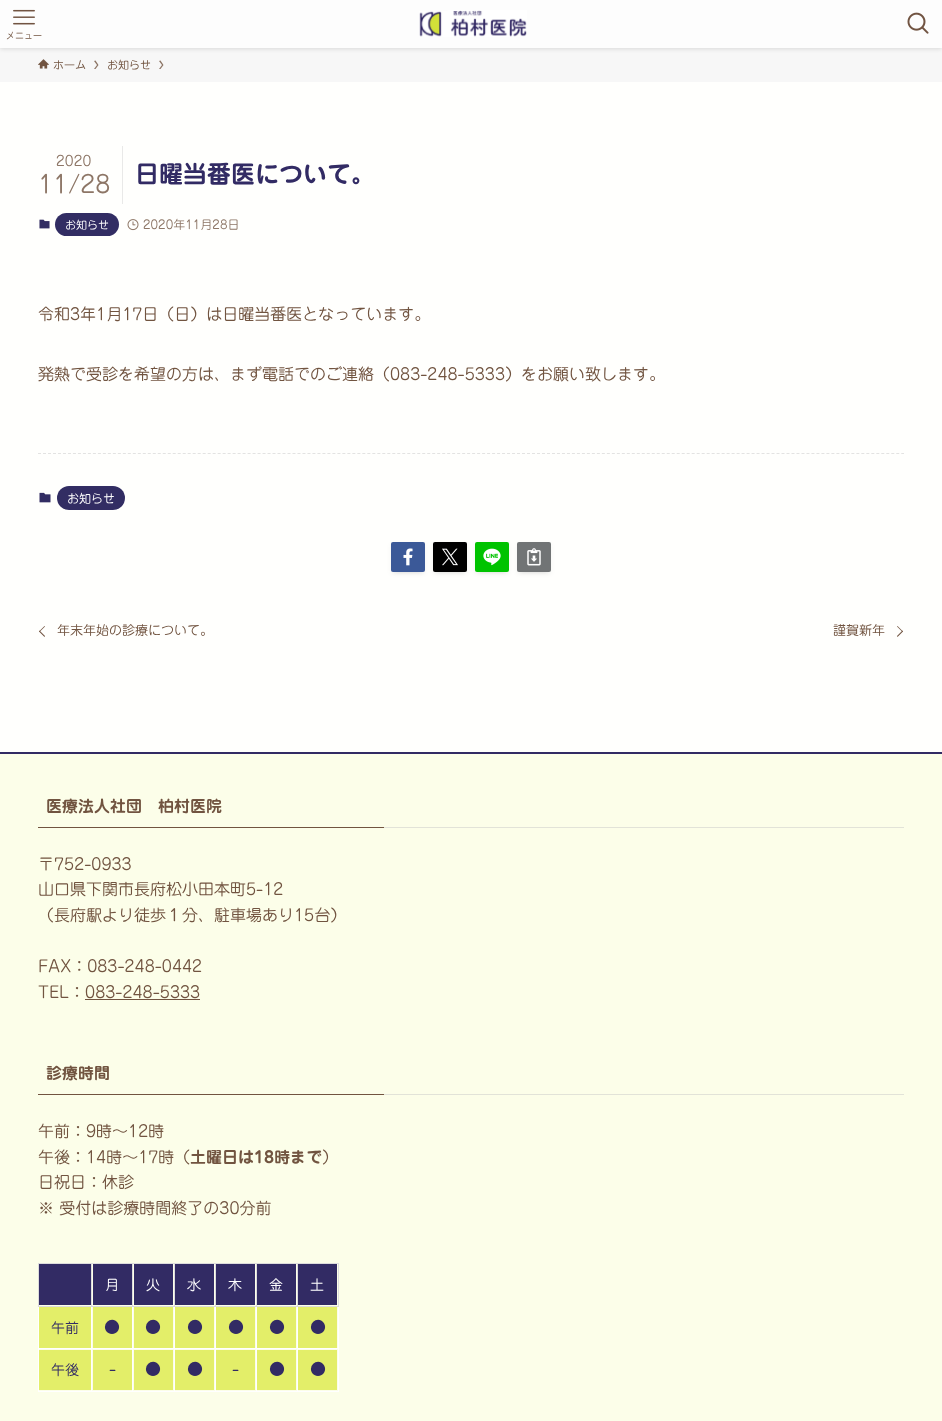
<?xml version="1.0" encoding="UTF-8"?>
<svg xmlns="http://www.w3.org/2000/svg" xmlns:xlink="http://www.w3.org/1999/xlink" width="942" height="1421">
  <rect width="100%" height="100%" fill="#fffffd" />
  <rect y="48" width="942" height="34" fill="#f7f7f7" />
  <rect y="1" width="942" height="48" fill="#000000" fill-opacity="0.12" filter="blur(2px)" />
  <rect width="942" height="48" fill="#fdfdfd" />
  <image x="419" y="10" width="108" height="27" xlink:href="image1.png" />
  <image x="907" y="12" width="22" height="22" xlink:href="image2.png" />
  <image x="13" y="9" width="22" height="16" xlink:href="image3.png" />
  <image x="38" y="59" width="11" height="10" xlink:href="image4.png" />
  <path d="M 95.5 60.5 l -1.5 0.5 l 3 4 l -3 4 h 1.5 l 3 -4 z" fill="#8c7565" />
  <path d="M 160.5 60.5 l -1.5 0.5 l 3 4 l -3 4 h 1.5 l 3 -4 z" fill="#8c7565" />
  <rect x="122" y="146" width="1" height="58" fill="#e9e9e8" />
  <image x="39" y="219" width="11" height="10" xlink:href="image5.png" />
  <rect x="55" y="213" width="64" height="23" rx="11.5" fill="#322d63" />
  <image x="127" y="219" width="12" height="12" xlink:href="image6.png" />
  <path d="M 38 453.5 h 866" fill="none" stroke="#e3e3e2" stroke-dasharray="3 1.99" />
  <image x="39" y="492" width="12" height="11" xlink:href="image7.png" />
  <rect x="57" y="486" width="68" height="24" rx="12" fill="#322d63" />
  <rect x="395" y="550" width="26" height="22" fill="#000000" fill-opacity="0.1" filter="blur(2px)" />
  <rect x="391" y="544" width="34" height="30" rx="2" fill="#000000" fill-opacity="0.05" filter="blur(2px)" />
  <rect x="391" y="542" width="34" height="30" rx="2" fill="#3b5998" />
  <image x="403" y="548" width="10" height="18" xlink:href="image8.png" />
  <rect x="437" y="550" width="26" height="22" fill="#000000" fill-opacity="0.1" filter="blur(2px)" />
  <rect x="433" y="544" width="34" height="30" rx="2" fill="#000000" fill-opacity="0.05" filter="blur(2px)" />
  <rect x="433" y="542" width="34" height="30" rx="2" fill="#000000" />
  <image x="442" y="548" width="16" height="18" xlink:href="image9.png" />
  <rect x="479" y="550" width="26" height="22" fill="#000000" fill-opacity="0.1" filter="blur(2px)" />
  <rect x="475" y="544" width="34" height="30" rx="2" fill="#000000" fill-opacity="0.05" filter="blur(2px)" />
  <rect x="475" y="542" width="34" height="30" rx="2" fill="#00c300" />
  <image x="483" y="548" width="18" height="18" xlink:href="image10.png" />
  <rect x="521" y="550" width="26" height="22" fill="#000000" fill-opacity="0.1" filter="blur(2px)" />
  <rect x="517" y="544" width="34" height="30" rx="2" fill="#000000" fill-opacity="0.05" filter="blur(2px)" />
  <rect x="517" y="542" width="34" height="30" rx="2" fill="#717475" />
  <image x="527" y="548" width="14" height="18" xlink:href="image11.png" />
  <path d="M 39.5 630.5 l 5.5 5.5 l -0.5 1 l -5.5 -5.5 z" fill="#715440" />
  <path d="M 44.5 626 l 0.5 0.5 l -5.5 5.5 l -0.5 -0.5 z" fill="#715440" />
  <path d="M 897 626.5 l 0.5 -0.5 l 5.5 5.5 l -0.5 0.5 z" fill="#715440" />
  <path d="M 897 636 l 5.5 -5.5 l 0.5 1 l -5.5 5.5 z" fill="#715440" />
  <rect y="754" width="942" height="667" fill="#fcfee9" />
  <rect y="752" width="942" height="2" fill="#322b64" />
  <rect x="38" y="827" width="346" height="1" fill="#715440" />
  <rect x="384" y="827" width="520" height="1" fill="#e2e3d8" />
  <rect x="85" y="999" width="115" height="1" fill="#715440" />
  <rect x="38" y="1094" width="346" height="1" fill="#715440" />
  <rect x="384" y="1094" width="520" height="1" fill="#e2e3d8" />
  <rect x="297" y="1263" width="42" height="1" fill="#dcdcdc" />
  <rect x="297" y="1348" width="42" height="1" fill="#ffffff" />
  <rect x="338" y="1306" width="1" height="86" fill="#ffffff" />
  <rect x="338" y="1263" width="1" height="44" fill="#dcdcdc" />
  <rect x="297" y="1391" width="42" height="1" fill="#ffffff" />
  <rect x="297" y="1348" width="1" height="44" fill="#ffffff" />
  <rect x="256" y="1348" width="42" height="1" fill="#ffffff" />
  <rect x="297" y="1306" width="1" height="43" fill="#ffffff" />
  <rect x="297" y="1306" width="42" height="1" fill="#dcdcdc" />
  <rect x="297" y="1263" width="1" height="44" fill="#dcdcdc" />
  <rect x="256" y="1263" width="42" height="1" fill="#dcdcdc" />
  <rect x="256" y="1391" width="42" height="1" fill="#ffffff" />
  <rect x="256" y="1348" width="1" height="44" fill="#ffffff" />
  <rect x="215" y="1348" width="42" height="1" fill="#ffffff" />
  <rect x="256" y="1306" width="1" height="43" fill="#ffffff" />
  <rect x="256" y="1306" width="42" height="1" fill="#dcdcdc" />
  <rect x="256" y="1263" width="1" height="44" fill="#dcdcdc" />
  <rect x="215" y="1263" width="42" height="1" fill="#dcdcdc" />
  <rect x="215" y="1391" width="42" height="1" fill="#ffffff" />
  <rect x="215" y="1348" width="1" height="44" fill="#ffffff" />
  <rect x="174" y="1348" width="42" height="1" fill="#ffffff" />
  <rect x="215" y="1306" width="1" height="43" fill="#ffffff" />
  <rect x="215" y="1306" width="42" height="1" fill="#dcdcdc" />
  <rect x="215" y="1263" width="1" height="44" fill="#dcdcdc" />
  <rect x="174" y="1263" width="42" height="1" fill="#dcdcdc" />
  <rect x="174" y="1391" width="42" height="1" fill="#ffffff" />
  <rect x="174" y="1348" width="1" height="44" fill="#ffffff" />
  <rect x="132" y="1348" width="43" height="1" fill="#ffffff" />
  <rect x="174" y="1306" width="1" height="43" fill="#ffffff" />
  <rect x="174" y="1306" width="42" height="1" fill="#dcdcdc" />
  <rect x="174" y="1263" width="1" height="44" fill="#dcdcdc" />
  <rect x="132" y="1263" width="43" height="1" fill="#dcdcdc" />
  <rect x="132" y="1391" width="43" height="1" fill="#ffffff" />
  <rect x="132" y="1348" width="1" height="44" fill="#ffffff" />
  <rect x="91" y="1348" width="42" height="1" fill="#ffffff" />
  <rect x="132" y="1306" width="1" height="43" fill="#ffffff" />
  <rect x="132" y="1306" width="43" height="1" fill="#dcdcdc" />
  <rect x="132" y="1263" width="1" height="44" fill="#dcdcdc" />
  <rect x="91" y="1263" width="42" height="1" fill="#dcdcdc" />
  <rect x="91" y="1391" width="42" height="1" fill="#ffffff" />
  <rect x="91" y="1348" width="1" height="44" fill="#ffffff" />
  <rect x="38" y="1348" width="54" height="1" fill="#ffffff" />
  <rect x="91" y="1306" width="1" height="43" fill="#ffffff" />
  <rect x="91" y="1306" width="42" height="1" fill="#dcdcdc" />
  <rect x="91" y="1263" width="1" height="44" fill="#dcdcdc" />
  <rect x="38" y="1263" width="54" height="1" fill="#dcdcdc" />
  <rect x="38" y="1391" width="54" height="1" fill="#ffffff" />
  <rect x="38" y="1306" width="1" height="86" fill="#ffffff" />
  <rect x="38" y="1306" width="54" height="1" fill="#dcdcdc" />
  <rect x="38" y="1263" width="1" height="44" fill="#dcdcdc" />
  <rect x="39" y="1264" width="52" height="41" fill="#322b64" />
  <rect x="93" y="1264" width="39" height="41" fill="#322b64" />
  <rect x="134" y="1264" width="39" height="41" fill="#322b64" />
  <rect x="175" y="1264" width="39" height="41" fill="#322b64" />
  <rect x="216" y="1264" width="39" height="41" fill="#322b64" />
  <rect x="257" y="1264" width="39" height="41" fill="#322b64" />
  <rect x="298" y="1264" width="39" height="41" fill="#322b64" />
  <rect x="39" y="1307" width="52" height="41" fill="#e3ee69" />
  <rect x="93" y="1307" width="39" height="41" fill="#e3ee69" />
  <rect x="134" y="1307" width="39" height="41" fill="#e3ee69" />
  <rect x="175" y="1307" width="39" height="41" fill="#e3ee69" />
  <rect x="216" y="1307" width="39" height="41" fill="#e3ee69" />
  <rect x="257" y="1307" width="39" height="41" fill="#e3ee69" />
  <rect x="298" y="1307" width="39" height="41" fill="#e3ee69" />
  <rect x="39" y="1350" width="52" height="40" fill="#e3ee69" />
  <rect x="93" y="1350" width="39" height="40" fill="#e3ee69" />
  <rect x="134" y="1350" width="39" height="40" fill="#e3ee69" />
  <rect x="175" y="1350" width="39" height="40" fill="#e3ee69" />
  <rect x="216" y="1350" width="39" height="40" fill="#e3ee69" />
  <rect x="257" y="1350" width="39" height="40" fill="#e3ee69" />
  <rect x="298" y="1350" width="39" height="40" fill="#e3ee69" />
  <text x="6" y="39" style="font-family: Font; font-size: 9px; fill: #715440">メニュー</text>
  <text x="53" y="69" style="font-family: Font; font-size: 11px; fill: #715440">ホーム</text>
  <text x="107" y="69" style="font-family: Font; font-size: 11px; fill: #715440">お知らせ</text>
  <text x="56" y="166" style="font-family: Font; font-size: 14px; fill: #8d7666">2020</text>
  <text x="38" y="193" style="font-family: Font; font-size: 24px; fill: #8d7666">11/28</text>
  <text x="135" y="183" style="font-family: Font; font-size: 24px; font-weight: 600; fill: #322b64">日曜当番医について。</text>
  <text x="65" y="229" style="font-family: Font; font-size: 11px; fill: #ffffff">お知らせ</text>
  <text x="143" y="229" style="font-family: Font; font-size: 12px; fill: #8d7666">2020年11月28日</text>
  <text x="38" y="320" style="font-family: Font; font-size: 16px; fill: #715440">令和3年1月17日（日）は日曜当番医となっています。</text>
  <text x="38" y="380" style="font-family: Font; font-size: 16px; fill: #715440">発熱で受診を希望の方は、まず電話でのご連絡（083-248-5333）をお願い致します。</text>
  <text x="67" y="503" style="font-family: Font; font-size: 12px; fill: #ffffff">お知らせ</text>
  <text x="57" y="635" style="font-family: Font; font-size: 13px; fill: #715440">年末年始の診療について。</text>
  <text x="833" y="635" style="font-family: Font; font-size: 13px; fill: #715440">謹賀新年</text>
  <text x="46" y="812" style="font-family: Font; font-size: 16px; font-weight: 600; fill: #715440">医療法人社団　柏村医院</text>
  <text x="38" y="870" style="font-family: Font; font-size: 16px; fill: #715440">〒752-0933</text>
  <text x="38" y="895" style="font-family: Font; font-size: 16px; fill: #715440">山口県下関市長府松小田本町5-12</text>
  <text x="38" y="921" style="font-family: Font; font-size: 16px; fill: #715440">（長府駅より徒歩１分、駐車場あり15台）</text>
  <text x="38" y="972" style="font-family: Font; font-size: 16px; fill: #715440">FAX：083-248-0442</text>
  <text x="38" y="998" style="font-family: Font; font-size: 16px; fill: #715440">TEL：083-248-5333</text>
  <text x="46" y="1079" style="font-family: Font; font-size: 16px; font-weight: 600; fill: #715440">診療時間</text>
  <text x="38" y="1137" style="font-family: Font; font-size: 16px; fill: #715440">午前：9時〜12時</text>
  <text x="38" y="1163" style="font-family: Font; font-size: 16px; fill: #715440">午後：14時〜17時（</text>
  <text x="190" y="1163" style="font-family: Font; font-size: 16px; font-weight: 600; fill: #715440">土曜日は18時まで</text>
  <text x="322" y="1163" style="font-family: Font; font-size: 16px; fill: #715440">）</text>
  <text x="38" y="1188" style="font-family: Font; font-size: 16px; fill: #715440">日祝日：休診</text>
  <text x="38" y="1214" style="font-family: Font; font-size: 16px; fill: #715440">※ 受付は診療時間終了の30分前</text>
  <text x="105" y="1290" style="font-family: Font; font-size: 14px; fill: #ffffff">月</text>
  <text x="146" y="1290" style="font-family: Font; font-size: 14px; fill: #ffffff">火</text>
  <text x="187" y="1290" style="font-family: Font; font-size: 14px; fill: #ffffff">水</text>
  <text x="228" y="1290" style="font-family: Font; font-size: 14px; fill: #ffffff">木</text>
  <text x="269" y="1290" style="font-family: Font; font-size: 14px; fill: #ffffff">金</text>
  <text x="310" y="1290" style="font-family: Font; font-size: 14px; fill: #ffffff">土</text>
  <text x="51" y="1333" style="font-family: Font; font-size: 14px; fill: #322b64">午前</text>
  <text x="104" y="1333" style="font-family: Font; font-size: 16px; fill: #322b64">●</text>
  <text x="145" y="1333" style="font-family: Font; font-size: 16px; fill: #322b64">●</text>
  <text x="187" y="1333" style="font-family: Font; font-size: 16px; fill: #322b64">●</text>
  <text x="228" y="1333" style="font-family: Font; font-size: 16px; fill: #322b64">●</text>
  <text x="269" y="1333" style="font-family: Font; font-size: 16px; fill: #322b64">●</text>
  <text x="310" y="1333" style="font-family: Font; font-size: 16px; fill: #322b64">●</text>
  <text x="51" y="1375" style="font-family: Font; font-size: 14px; fill: #322b64">午後</text>
  <text x="109" y="1375" style="font-family: Font; font-size: 16px; fill: #322b64">-</text>
  <text x="145" y="1375" style="font-family: Font; font-size: 16px; fill: #322b64">●</text>
  <text x="187" y="1375" style="font-family: Font; font-size: 16px; fill: #322b64">●</text>
  <text x="232" y="1375" style="font-family: Font; font-size: 16px; fill: #322b64">-</text>
  <text x="269" y="1375" style="font-family: Font; font-size: 16px; fill: #322b64">●</text>
  <text x="310" y="1375" style="font-family: Font; font-size: 16px; fill: #322b64">●</text>
</svg>
